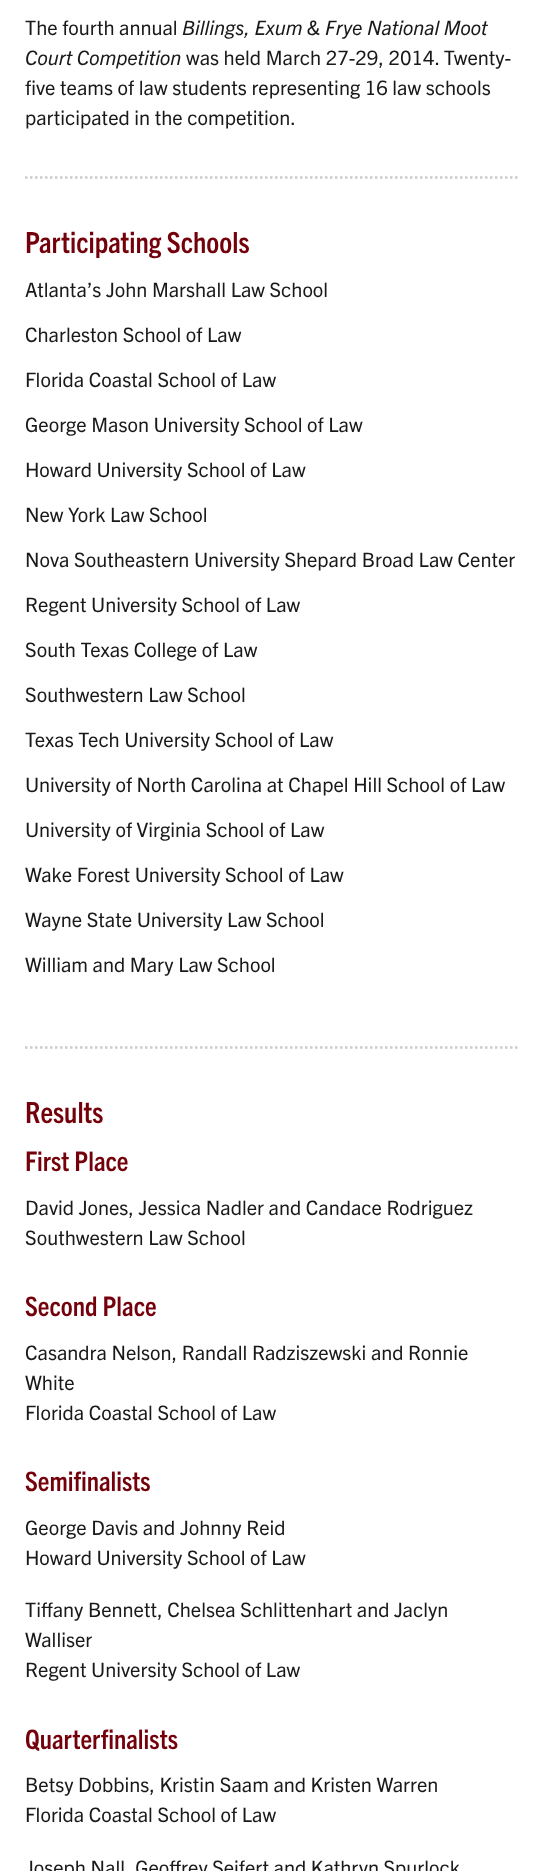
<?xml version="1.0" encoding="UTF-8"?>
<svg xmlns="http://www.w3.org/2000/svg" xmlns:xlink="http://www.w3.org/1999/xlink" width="542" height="1871">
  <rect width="100%" height="100%" fill="#ffffff" />
  <path d="M 25 177.5 h 492.5" fill="none" stroke="#cccccc" stroke-width="2.5" stroke-dasharray="2.5 2.5" />
  <path d="M 25 1047.5 h 492.5" fill="none" stroke="#cccccc" stroke-width="2.5" stroke-dasharray="2.5 2.5" />
  <text x="25" y="35" style="font-family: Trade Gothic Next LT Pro; font-size: 20px; fill: #191919">The fourth annual</text>
  <text x="182" y="35" style="font-family: Trade Gothic Next LT Pro; font-size: 20px; font-style: italic; fill: #191919">Billings, Exum &amp; Frye National Moot</text>
  <text x="25" y="65" style="font-family: Trade Gothic Next LT Pro; font-size: 20px; font-style: italic; fill: #191919">Court Competition</text>
  <text x="186" y="65" style="font-family: Trade Gothic Next LT Pro; font-size: 20px; fill: #191919">was held March 27-29, 2014. Twenty-</text>
  <text x="25" y="95" style="font-family: Trade Gothic Next LT Pro; font-size: 20px; fill: #191919">five teams of law students representing 16 law schools</text>
  <text x="25" y="125" style="font-family: Trade Gothic Next LT Pro; font-size: 20px; fill: #191919">participated in the competition.</text>
  <text x="25" y="253" style="font-family: Trade Gothic Next LT Pro; font-size: 29.25px; font-weight: bold; fill: #73000a">Participating Schools</text>
  <text x="25" y="297" style="font-family: Trade Gothic Next LT Pro; font-size: 20px; fill: #191919">Atlanta’s John Marshall Law School</text>
  <text x="25" y="342" style="font-family: Trade Gothic Next LT Pro; font-size: 20px; fill: #191919">Charleston School of Law</text>
  <text x="25" y="387" style="font-family: Trade Gothic Next LT Pro; font-size: 20px; fill: #191919">Florida Coastal School of Law</text>
  <text x="25" y="432" style="font-family: Trade Gothic Next LT Pro; font-size: 20px; fill: #191919">George Mason University School of Law</text>
  <text x="25" y="477" style="font-family: Trade Gothic Next LT Pro; font-size: 20px; fill: #191919">Howard University School of Law</text>
  <text x="25" y="522" style="font-family: Trade Gothic Next LT Pro; font-size: 20px; fill: #191919">New York Law School</text>
  <text x="25" y="567" style="font-family: Trade Gothic Next LT Pro; font-size: 20px; fill: #191919">Nova Southeastern University Shepard Broad Law Center</text>
  <text x="25" y="612" style="font-family: Trade Gothic Next LT Pro; font-size: 20px; fill: #191919">Regent University School of Law</text>
  <text x="25" y="657" style="font-family: Trade Gothic Next LT Pro; font-size: 20px; fill: #191919">South Texas College of Law</text>
  <text x="25" y="702" style="font-family: Trade Gothic Next LT Pro; font-size: 20px; fill: #191919">Southwestern Law School</text>
  <text x="25" y="747" style="font-family: Trade Gothic Next LT Pro; font-size: 20px; fill: #191919">Texas Tech University School of Law</text>
  <text x="25" y="792" style="font-family: Trade Gothic Next LT Pro; font-size: 20px; fill: #191919">University of North Carolina at Chapel Hill School of Law</text>
  <text x="25" y="837" style="font-family: Trade Gothic Next LT Pro; font-size: 20px; fill: #191919">University of Virginia School of Law</text>
  <text x="25" y="882" style="font-family: Trade Gothic Next LT Pro; font-size: 20px; fill: #191919">Wake Forest University School of Law</text>
  <text x="25" y="927" style="font-family: Trade Gothic Next LT Pro; font-size: 20px; fill: #191919">Wayne State University Law School</text>
  <text x="25" y="972" style="font-family: Trade Gothic Next LT Pro; font-size: 20px; fill: #191919">William and Mary Law School</text>
  <text x="25" y="1123" style="font-family: Trade Gothic Next LT Pro; font-size: 29.25px; font-weight: bold; fill: #73000a">Results</text>
  <text x="25" y="1171" style="font-family: Trade Gothic Next LT Pro; font-size: 27px; font-weight: bold; fill: #73000a">First Place</text>
  <text x="25" y="1215" style="font-family: Trade Gothic Next LT Pro; font-size: 20px; fill: #191919">David Jones, Jessica Nadler and Candace Rodriguez</text>
  <text x="25" y="1245" style="font-family: Trade Gothic Next LT Pro; font-size: 20px; fill: #191919">Southwestern Law School</text>
  <text x="25" y="1316" style="font-family: Trade Gothic Next LT Pro; font-size: 27px; font-weight: bold; fill: #73000a">Second Place</text>
  <text x="25" y="1360" style="font-family: Trade Gothic Next LT Pro; font-size: 20px; fill: #191919">Casandra Nelson, Randall Radziszewski and Ronnie</text>
  <text x="25" y="1390" style="font-family: Trade Gothic Next LT Pro; font-size: 20px; fill: #191919">White</text>
  <text x="25" y="1420" style="font-family: Trade Gothic Next LT Pro; font-size: 20px; fill: #191919">Florida Coastal School of Law</text>
  <text x="25" y="1491" style="font-family: Trade Gothic Next LT Pro; font-size: 27px; font-weight: bold; fill: #73000a">Semifinalists</text>
  <text x="25" y="1535" style="font-family: Trade Gothic Next LT Pro; font-size: 20px; fill: #191919">George Davis and Johnny Reid</text>
  <text x="25" y="1565" style="font-family: Trade Gothic Next LT Pro; font-size: 20px; fill: #191919">Howard University School of Law</text>
  <text x="25" y="1617" style="font-family: Trade Gothic Next LT Pro; font-size: 20px; fill: #191919">Tiffany Bennett, Chelsea Schlittenhart and Jaclyn</text>
  <text x="25" y="1647" style="font-family: Trade Gothic Next LT Pro; font-size: 20px; fill: #191919">Walliser</text>
  <text x="25" y="1677" style="font-family: Trade Gothic Next LT Pro; font-size: 20px; fill: #191919">Regent University School of Law</text>
  <text x="25" y="1749" style="font-family: Trade Gothic Next LT Pro; font-size: 27px; font-weight: bold; fill: #73000a">Quarterfinalists</text>
  <text x="25" y="1792" style="font-family: Trade Gothic Next LT Pro; font-size: 20px; fill: #191919">Betsy Dobbins, Kristin Saam and Kristen Warren</text>
  <text x="25" y="1822" style="font-family: Trade Gothic Next LT Pro; font-size: 20px; fill: #191919">Florida Coastal School of Law</text>
  <text x="25" y="1875" style="font-family: Trade Gothic Next LT Pro; font-size: 20px; fill: #191919">Joseph Nall, Geoffrey Seifert and Kathryn Spurlock</text>
</svg>
